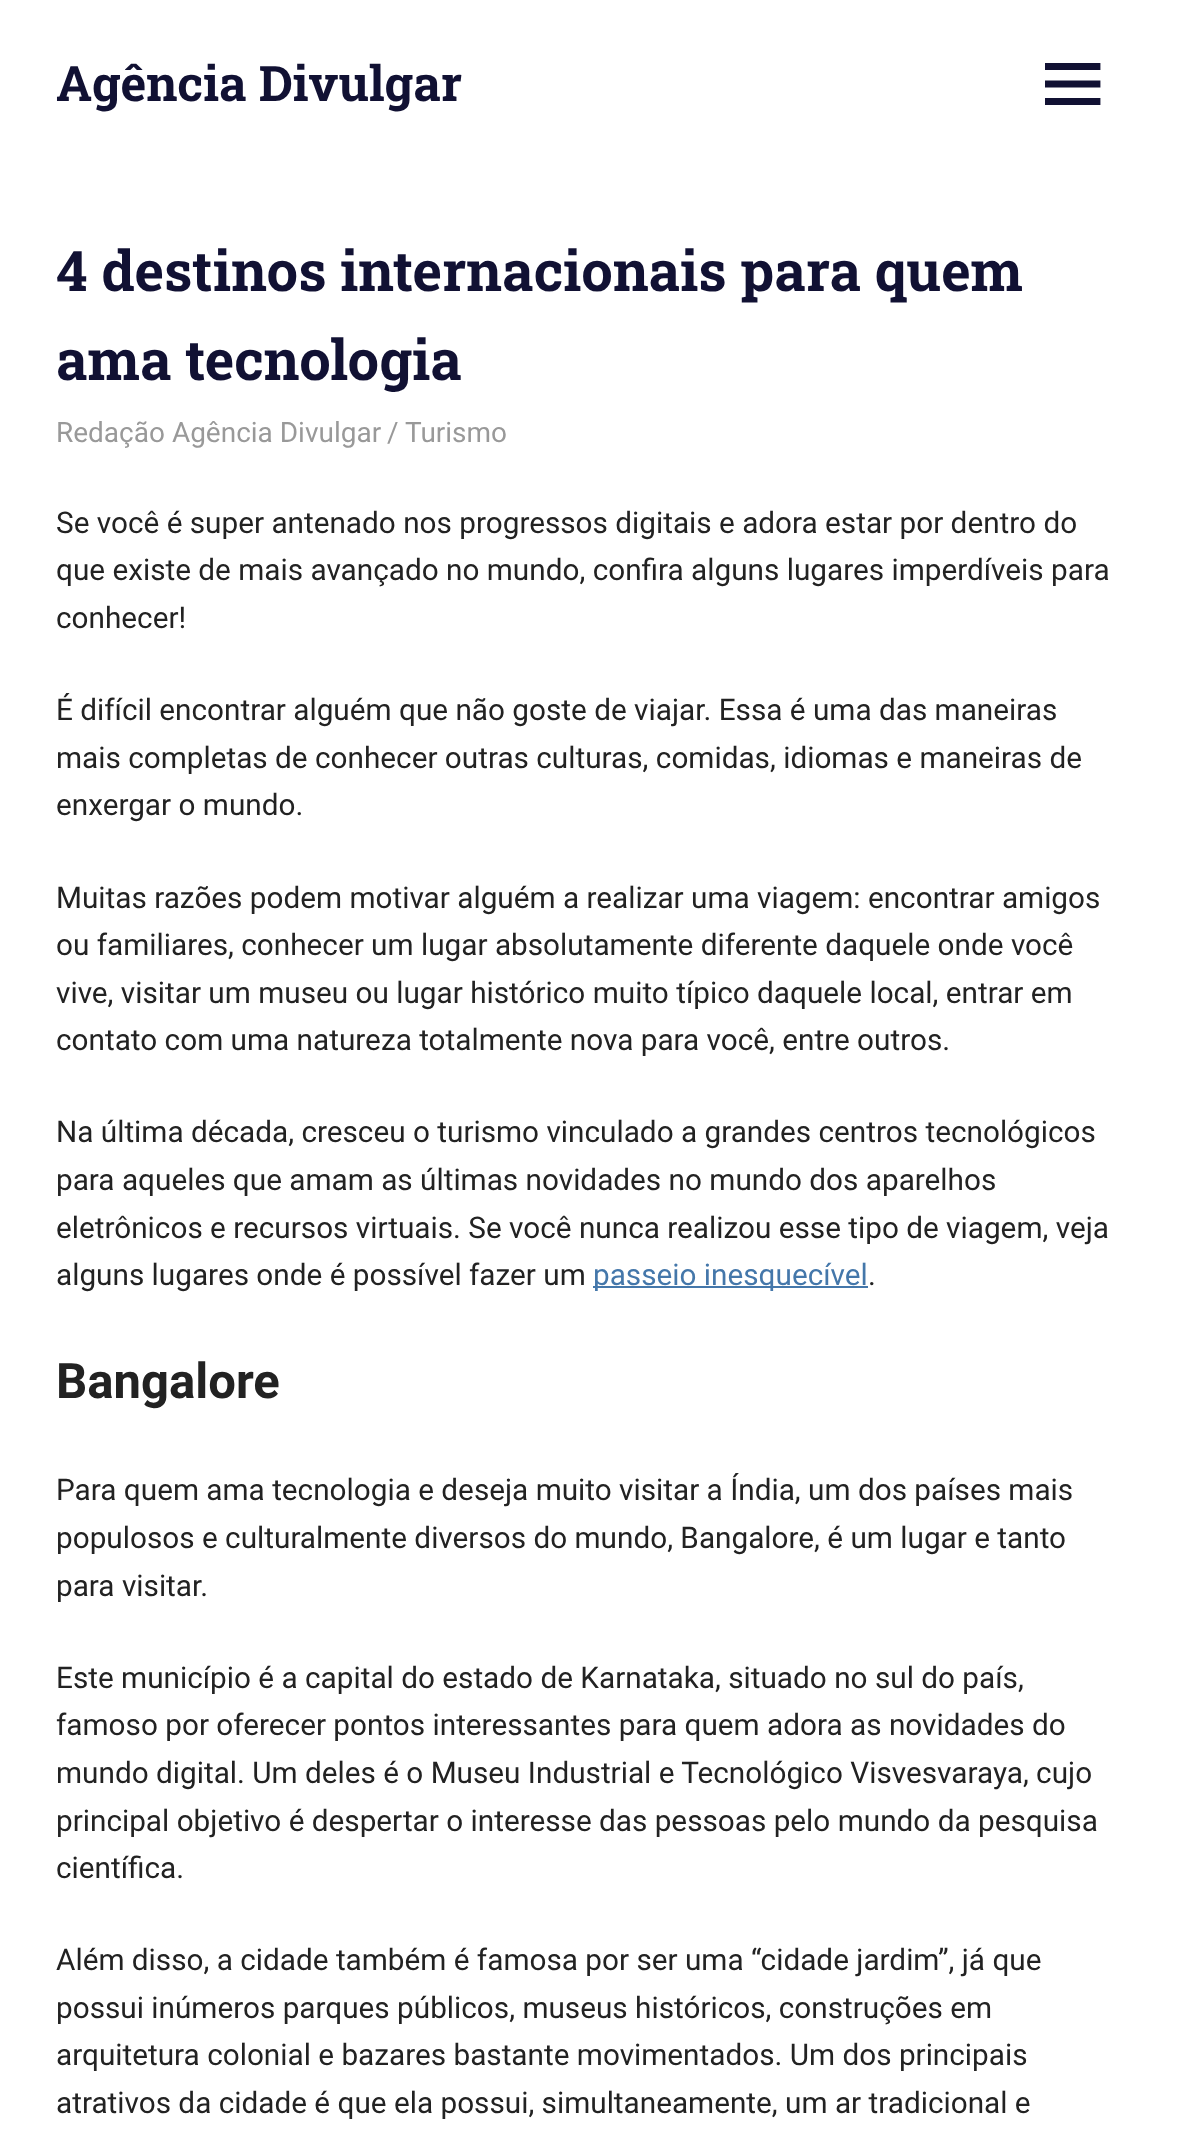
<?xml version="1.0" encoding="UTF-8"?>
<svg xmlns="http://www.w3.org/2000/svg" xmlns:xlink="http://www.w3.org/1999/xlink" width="1184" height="2145">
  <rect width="100%" height="100%" fill="#ffffff" />
  <image x="1045" y="63" width="56" height="42" xlink:href="image1.png" />
  <rect x="593" y="1286" width="275" height="2" fill="#4477aa" />
  <text x="56" y="101" style="font-family: Roboto Slab; font-size: 49px; font-weight: bold; fill: #111133">Agência Divulgar</text>
  <text x="56" y="291" style="font-family: Roboto Slab; font-size: 56px; font-weight: bold; fill: #111133">4 destinos internacionais para quem</text>
  <text x="56" y="380" style="font-family: Roboto Slab; font-size: 56px; font-weight: bold; fill: #111133">ama tecnologia</text>
  <text x="56" y="442" style="font-family: Roboto; font-size: 28px; fill: #999999">Redação Agência Divulgar</text>
  <text x="387" y="442" style="font-family: Roboto; font-size: 28px; fill: #999999">/</text>
  <text x="405" y="442" style="font-family: Roboto; font-size: 28px; fill: #999999">Turismo</text>
  <text x="56" y="533" style="font-family: Roboto; font-size: 29.75px; fill: #222222">Se você é super antenado nos progressos digitais e adora estar por dentro do</text>
  <text x="56" y="580" style="font-family: Roboto; font-size: 29.75px; fill: #222222">que existe de mais avançado no mundo, confira alguns lugares imperdíveis para</text>
  <text x="56" y="628" style="font-family: Roboto; font-size: 29.75px; fill: #222222">conhecer!</text>
  <text x="56" y="720" style="font-family: Roboto; font-size: 29.75px; fill: #222222">É difícil encontrar alguém que não goste de viajar. Essa é uma das maneiras</text>
  <text x="56" y="768" style="font-family: Roboto; font-size: 29.75px; fill: #222222">mais completas de conhecer outras culturas, comidas, idiomas e maneiras de</text>
  <text x="56" y="815" style="font-family: Roboto; font-size: 29.75px; fill: #222222">enxergar o mundo.</text>
  <text x="56" y="908" style="font-family: Roboto; font-size: 29.75px; fill: #222222">Muitas razões podem motivar alguém a realizar uma viagem: encontrar amigos</text>
  <text x="56" y="955" style="font-family: Roboto; font-size: 29.75px; fill: #222222">ou familiares, conhecer um lugar absolutamente diferente daquele onde você</text>
  <text x="56" y="1003" style="font-family: Roboto; font-size: 29.75px; fill: #222222">vive, visitar um museu ou lugar histórico muito típico daquele local, entrar em</text>
  <text x="56" y="1050" style="font-family: Roboto; font-size: 29.75px; fill: #222222">contato com uma natureza totalmente nova para você, entre outros.</text>
  <text x="56" y="1142" style="font-family: Roboto; font-size: 29.75px; fill: #222222">Na última década, cresceu o turismo vinculado a grandes centros tecnológicos</text>
  <text x="56" y="1190" style="font-family: Roboto; font-size: 29.75px; fill: #222222">para aqueles que amam as últimas novidades no mundo dos aparelhos</text>
  <text x="56" y="1238" style="font-family: Roboto; font-size: 29.75px; fill: #222222">eletrônicos e recursos virtuais. Se você nunca realizou esse tipo de viagem, veja</text>
  <text x="56" y="1285" style="font-family: Roboto; font-size: 29.75px; fill: #222222">alguns lugares onde é possível fazer um</text>
  <text x="593" y="1285" style="font-family: Roboto; font-size: 29.75px; fill: #4477aa">passeio inesquecível</text>
  <text x="868" y="1285" style="font-family: Roboto; font-size: 29.75px; fill: #222222">.</text>
  <text x="56" y="1398" style="font-family: Roboto; font-size: 49px; font-weight: bold; fill: #222222">Bangalore</text>
  <text x="56" y="1500" style="font-family: Roboto; font-size: 29.75px; fill: #222222">Para quem ama tecnologia e deseja muito visitar a Índia, um dos países mais</text>
  <text x="56" y="1548" style="font-family: Roboto; font-size: 29.75px; fill: #222222">populosos e culturalmente diversos do mundo, Bangalore, é um lugar e tanto</text>
  <text x="56" y="1596" style="font-family: Roboto; font-size: 29.75px; fill: #222222">para visitar.</text>
  <text x="56" y="1688" style="font-family: Roboto; font-size: 29.75px; fill: #222222">Este município é a capital do estado de Karnataka, situado no sul do país,</text>
  <text x="56" y="1735" style="font-family: Roboto; font-size: 29.75px; fill: #222222">famoso por oferecer pontos interessantes para quem adora as novidades do</text>
  <text x="56" y="1783" style="font-family: Roboto; font-size: 29.75px; fill: #222222">mundo digital. Um deles é o Museu Industrial e Tecnológico Visvesvaraya, cujo</text>
  <text x="56" y="1831" style="font-family: Roboto; font-size: 29.75px; fill: #222222">principal objetivo é despertar o interesse das pessoas pelo mundo da pesquisa</text>
  <text x="56" y="1878" style="font-family: Roboto; font-size: 29.75px; fill: #222222">científica.</text>
  <text x="56" y="1970" style="font-family: Roboto; font-size: 29.75px; fill: #222222">Além disso, a cidade também é famosa por ser uma “cidade jardim”, já que</text>
  <text x="56" y="2018" style="font-family: Roboto; font-size: 29.75px; fill: #222222">possui inúmeros parques públicos, museus históricos, construções em</text>
  <text x="56" y="2065" style="font-family: Roboto; font-size: 29.75px; fill: #222222">arquitetura colonial e bazares bastante movimentados. Um dos principais</text>
  <text x="56" y="2113" style="font-family: Roboto; font-size: 29.75px; fill: #222222">atrativos da cidade é que ela possui, simultaneamente, um ar tradicional e</text>
</svg>
